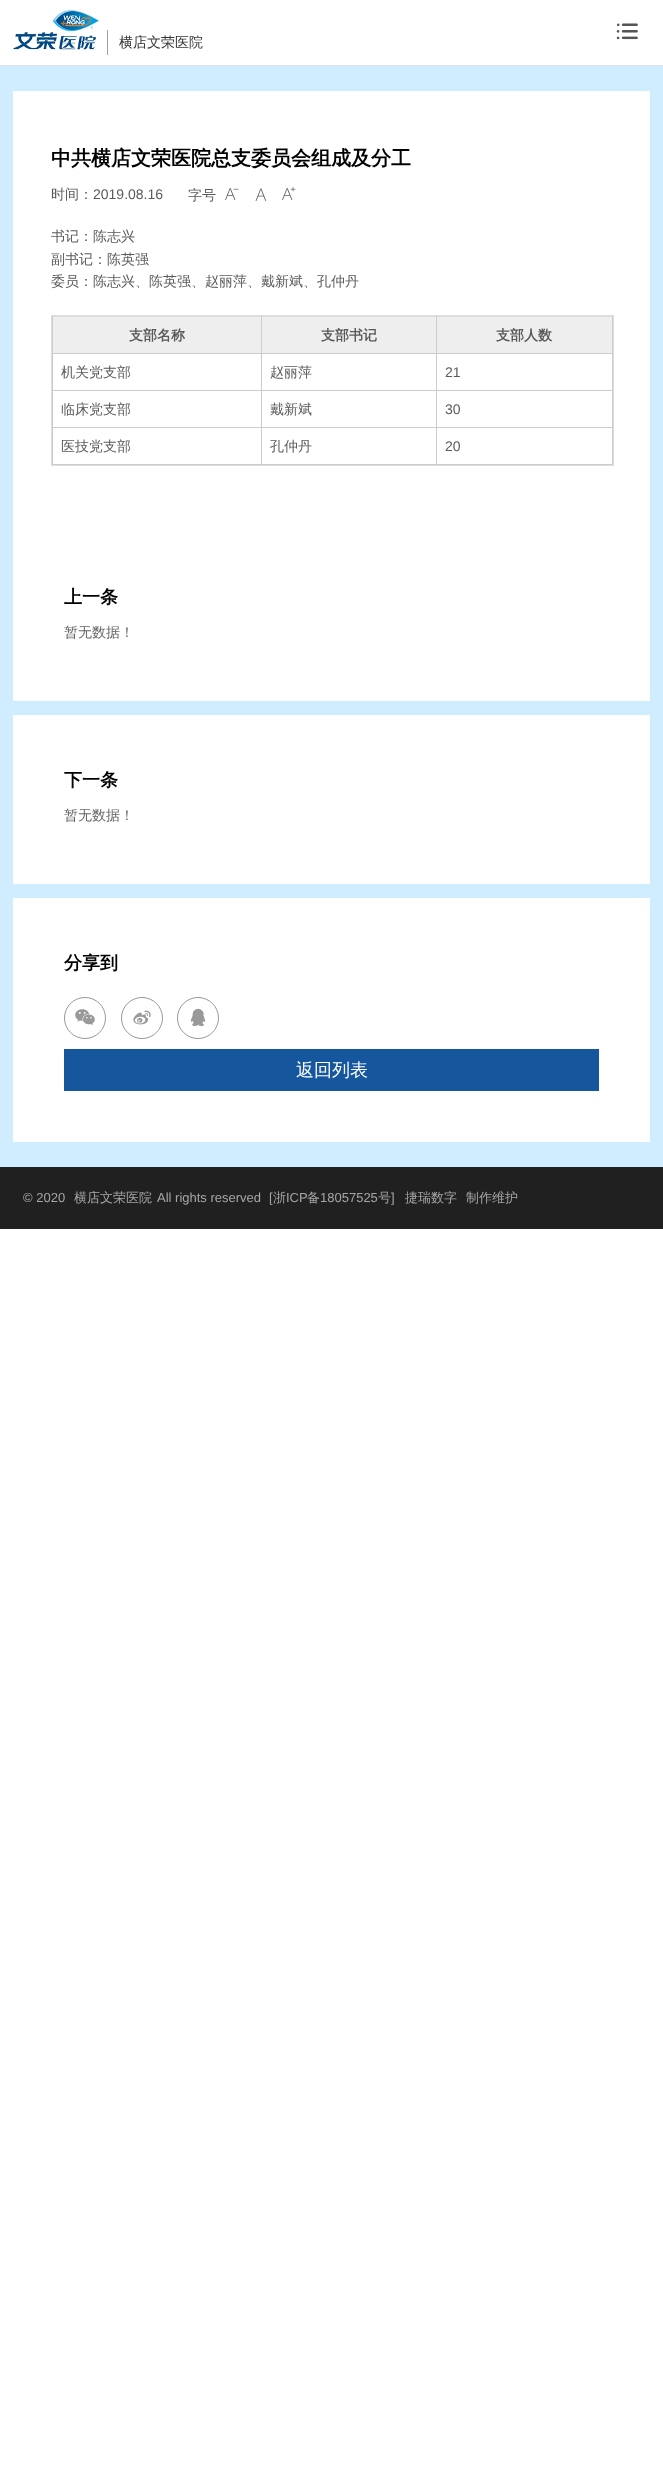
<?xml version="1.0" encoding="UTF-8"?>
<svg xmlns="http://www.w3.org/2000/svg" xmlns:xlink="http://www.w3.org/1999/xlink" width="663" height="2468">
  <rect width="100%" height="100%" fill="#ffffff" />
  <rect y="65" width="663" height="1" fill="#e3e3e3" />
  <image x="616" y="23" width="22" height="17" xlink:href="image1.png" />
  <image x="13" y="10" width="86" height="40" xlink:href="image2.png" />
  <rect x="107" y="30" width="1" height="25" fill="#a0a0a0" />
  <rect y="66" width="663" height="1101" fill="#cfedff" />
  <rect x="13" y="91" width="637" height="610" fill="#ffffff" />
  <image x="225" y="188" width="14" height="12" xlink:href="image3.png" />
  <image x="255" y="188" width="12" height="13" xlink:href="image4.png" />
  <image x="282" y="187" width="14" height="13" xlink:href="image5.png" />
  <rect x="51.5" y="315.5" width="562" height="150" fill="none" stroke="#dddddd" />
  <rect x="52" y="464" width="561" height="1" fill="#cccccc" />
  <rect x="53" y="317" width="208" height="36" fill="#eeeeee" />
  <rect x="52" y="316" width="561" height="1" fill="#dddddd" />
  <rect x="612" y="353" width="1" height="112" fill="#cccccc" />
  <rect x="612" y="316" width="1" height="38" fill="#cccccc" />
  <rect x="436" y="427" width="1" height="38" fill="#cccccc" />
  <rect x="436" y="427" width="177" height="1" fill="#cccccc" />
  <rect x="436" y="390" width="1" height="38" fill="#cccccc" />
  <rect x="436" y="390" width="177" height="1" fill="#cccccc" />
  <rect x="436" y="353" width="1" height="38" fill="#cccccc" />
  <rect x="436" y="353" width="177" height="1" fill="#cccccc" />
  <rect x="436" y="316" width="1" height="38" fill="#cccccc" />
  <rect x="261" y="427" width="1" height="38" fill="#cccccc" />
  <rect x="261" y="427" width="176" height="1" fill="#cccccc" />
  <rect x="261" y="390" width="1" height="38" fill="#cccccc" />
  <rect x="261" y="390" width="176" height="1" fill="#cccccc" />
  <rect x="261" y="353" width="1" height="38" fill="#cccccc" />
  <rect x="261" y="353" width="176" height="1" fill="#cccccc" />
  <rect x="261" y="316" width="1" height="38" fill="#cccccc" />
  <rect x="52" y="427" width="1" height="38" fill="#cccccc" />
  <rect x="52" y="427" width="210" height="1" fill="#cccccc" />
  <rect x="52" y="390" width="1" height="38" fill="#cccccc" />
  <rect x="52" y="390" width="210" height="1" fill="#cccccc" />
  <rect x="52" y="353" width="1" height="38" fill="#cccccc" />
  <rect x="52" y="353" width="210" height="1" fill="#cccccc" />
  <rect x="52" y="316" width="1" height="38" fill="#cccccc" />
  <rect x="262" y="317" width="174" height="36" fill="#eeeeee" />
  <rect x="437" y="317" width="175" height="36" fill="#eeeeee" />
  <rect x="13" y="715" width="637" height="169" fill="#ffffff" />
  <rect x="13" y="898" width="637" height="244" fill="#ffffff" />
  <circle cx="85" cy="1018" r="20.5" fill="none" stroke="#999999" />
  <image x="75" y="1009" width="20" height="16" xlink:href="image6.png" />
  <circle cx="142" cy="1018" r="20.5" fill="none" stroke="#999999" />
  <image x="133" y="1010" width="18" height="15" xlink:href="image7.png" />
  <circle cx="198" cy="1018" r="20.5" fill="none" stroke="#999999" />
  <image x="190" y="1008" width="16" height="19" xlink:href="image8.png" />
  <rect x="64" y="1049" width="535" height="42" fill="#15569c" />
  <rect y="1167" width="663" height="62" fill="#202020" />
  <text x="119" y="47" style="font-family: WenQuanYi Zen Hei; font-size: 14px; font-weight: 500; fill: #353535">横店文荣医院</text>
  <text x="51" y="165" style="font-family: WenQuanYi Zen Hei; font-size: 20px; font-weight: bold; fill: #000000">中共横店文荣医院总支委员会组成及分工</text>
  <text x="51" y="199" style="font-family: WenQuanYi Zen Hei; font-size: 14px; font-weight: 500; fill: #5a5a5a">时间：</text>
  <text x="93" y="199" style="font-family: Liberation Sans; font-size: 14px; fill: #5a5a5a">2019.08.16</text>
  <text x="188" y="200" style="font-family: WenQuanYi Zen Hei; font-size: 14px; font-weight: 500; fill: #5a5a5a">字号</text>
  <text x="51" y="241" style="font-family: WenQuanYi Zen Hei; font-size: 14px; font-weight: 500; fill: #5a5a5a">书记：陈志兴</text>
  <text x="51" y="264" style="font-family: WenQuanYi Zen Hei; font-size: 14px; font-weight: 500; fill: #5a5a5a">副书记：陈英强</text>
  <text x="51" y="286" style="font-family: WenQuanYi Zen Hei; font-size: 14px; font-weight: 500; fill: #5a5a5a">委员：陈志兴、陈英强、赵丽萍、戴新斌、孔仲丹</text>
  <text x="129" y="340" style="font-family: WenQuanYi Zen Hei; font-size: 14px; font-weight: bold; fill: #5a5a5a">支部名称</text>
  <text x="321" y="340" style="font-family: WenQuanYi Zen Hei; font-size: 14px; font-weight: bold; fill: #5a5a5a">支部书记</text>
  <text x="496" y="340" style="font-family: WenQuanYi Zen Hei; font-size: 14px; font-weight: bold; fill: #5a5a5a">支部人数</text>
  <text x="61" y="377" style="font-family: WenQuanYi Zen Hei; font-size: 14px; font-weight: 500; fill: #5a5a5a">机关党支部</text>
  <text x="270" y="377" style="font-family: WenQuanYi Zen Hei; font-size: 14px; font-weight: 500; fill: #5a5a5a">赵丽萍</text>
  <text x="445" y="377" style="font-family: Liberation Sans; font-size: 14px; fill: #5a5a5a">21</text>
  <text x="61" y="414" style="font-family: WenQuanYi Zen Hei; font-size: 14px; font-weight: 500; fill: #5a5a5a">临床党支部</text>
  <text x="270" y="414" style="font-family: WenQuanYi Zen Hei; font-size: 14px; font-weight: 500; fill: #5a5a5a">戴新斌</text>
  <text x="445" y="414" style="font-family: Liberation Sans; font-size: 14px; fill: #5a5a5a">30</text>
  <text x="61" y="451" style="font-family: WenQuanYi Zen Hei; font-size: 14px; font-weight: 500; fill: #5a5a5a">医技党支部</text>
  <text x="270" y="451" style="font-family: WenQuanYi Zen Hei; font-size: 14px; font-weight: 500; fill: #5a5a5a">孔仲丹</text>
  <text x="445" y="451" style="font-family: Liberation Sans; font-size: 14px; fill: #5a5a5a">20</text>
  <text x="64" y="603" style="font-family: WenQuanYi Zen Hei; font-size: 18px; font-weight: bold; fill: #000000">上一条</text>
  <text x="64" y="637" style="font-family: WenQuanYi Zen Hei; font-size: 14px; font-weight: 500; fill: #666666">暂无数据！</text>
  <text x="64" y="786" style="font-family: WenQuanYi Zen Hei; font-size: 18px; font-weight: bold; fill: #000000">下一条</text>
  <text x="64" y="820" style="font-family: WenQuanYi Zen Hei; font-size: 14px; font-weight: 500; fill: #666666">暂无数据！</text>
  <text x="64" y="969" style="font-family: WenQuanYi Zen Hei; font-size: 18px; font-weight: bold; fill: #000000">分享到</text>
  <text x="296" y="1076" style="font-family: WenQuanYi Zen Hei; font-size: 18px; font-weight: 500; fill: #ffffff">返回列表</text>
  <text x="23" y="1202" style="font-family: Liberation Sans; font-size: 13px; fill: #a6a6a6">© 2020</text>
  <text x="74" y="1202" style="font-family: WenQuanYi Zen Hei; font-size: 13px; font-weight: 500; fill: #a6a6a6">横店文荣医院</text>
  <text x="157" y="1202" style="font-family: Liberation Sans; font-size: 13px; fill: #a6a6a6">All rights reserved</text>
  <text x="269" y="1202" style="font-family: Liberation Sans; font-size: 13px; fill: #a6a6a6">[</text>
  <text x="273" y="1202" style="font-family: WenQuanYi Zen Hei; font-size: 13px; font-weight: 500; fill: #a6a6a6">浙</text>
  <text x="286" y="1202" style="font-family: Liberation Sans; font-size: 13px; fill: #a6a6a6">ICP</text>
  <text x="307" y="1202" style="font-family: WenQuanYi Zen Hei; font-size: 13px; font-weight: 500; fill: #a6a6a6">备</text>
  <text x="320" y="1202" style="font-family: Liberation Sans; font-size: 13px; fill: #a6a6a6">18057525</text>
  <text x="378" y="1202" style="font-family: WenQuanYi Zen Hei; font-size: 13px; font-weight: 500; fill: #a6a6a6">号</text>
  <text x="391" y="1202" style="font-family: Liberation Sans; font-size: 13px; fill: #a6a6a6">]</text>
  <text x="405" y="1202" style="font-family: WenQuanYi Zen Hei; font-size: 13px; font-weight: 500; fill: #a6a6a6">捷瑞数字</text>
  <text x="466" y="1202" style="font-family: WenQuanYi Zen Hei; font-size: 13px; font-weight: 500; fill: #a6a6a6">制作维护</text>
</svg>
